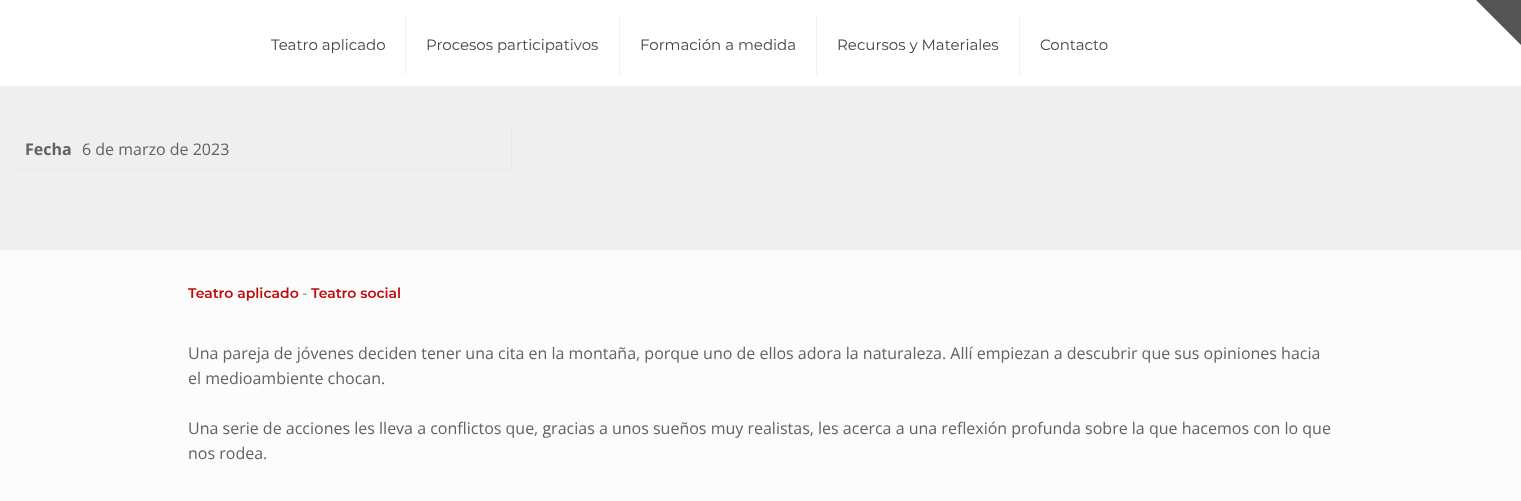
<?xml version="1.0" encoding="UTF-8"?>
<svg xmlns="http://www.w3.org/2000/svg" xmlns:xlink="http://www.w3.org/1999/xlink" width="1521" height="501">
  <rect width="100%" height="100%" fill="#efefef" />
  <rect width="1521" height="86" fill="#ffffff" />
  <path d="M 1521 0 v 45 l -45 -45 z" fill="#545454" />
  <rect x="405" y="15" width="1" height="60" fill="#f2f2f2" />
  <rect x="619" y="15" width="1" height="60" fill="#f2f2f2" />
  <rect x="816" y="15" width="1" height="60" fill="#f2f2f2" />
  <rect x="1019" y="15" width="1" height="60" fill="#f2f2f2" />
  <rect y="250" width="1521" height="251" fill="#fcfcfc" />
  <path d="M 512 130 v 40 l -1 -1 v -39 z" fill="#e6e6e6" />
  <path d="M 512 170 h -497 v -1 h 496 z" fill="#000000" fill-opacity="0.03" />
  <text x="271" y="50" style="font-family: Montserrat; font-size: 15px; fill: #444444">Teatro aplicado</text>
  <text x="426" y="50" style="font-family: Montserrat; font-size: 15px; fill: #444444">Procesos participativos</text>
  <text x="640" y="50" style="font-family: Montserrat; font-size: 15px; fill: #444444">Formación a medida</text>
  <text x="837" y="50" style="font-family: Montserrat; font-size: 15px; fill: #444444">Recursos y Materiales</text>
  <text x="1040" y="50" style="font-family: Montserrat; font-size: 15px; fill: #444444">Contacto</text>
  <text x="25" y="155" style="font-family: Open Sans; font-size: 16px; font-weight: bold; fill: #626262">Fecha</text>
  <text x="82" y="155" style="font-family: Open Sans; font-size: 16px; fill: #626262">6 de marzo de 2023</text>
  <text x="188" y="298" style="font-family: Montserrat; font-size: 14px; font-weight: 600; fill: #c20909">Teatro aplicado</text>
  <text x="302" y="298" style="font-family: Montserrat; font-size: 14px; fill: #626262">-</text>
  <text x="311" y="298" style="font-family: Montserrat; font-size: 14px; font-weight: 600; fill: #c20909">Teatro social</text>
  <text x="188" y="359" style="font-family: Open Sans; font-size: 16px; fill: #626262">Una pareja de jóvenes deciden tener una cita en la montaña, porque uno de ellos adora la naturaleza. Allí empiezan a descubrir que sus opiniones hacia</text>
  <text x="188" y="384" style="font-family: Open Sans; font-size: 16px; fill: #626262">el medioambiente chocan.</text>
  <text x="188" y="434" style="font-family: Open Sans; font-size: 16px; fill: #626262">Una serie de acciones les lleva a conflictos que, gracias a unos sueños muy realistas, les acerca a una reflexión profunda sobre la que hacemos con lo que</text>
  <text x="188" y="459" style="font-family: Open Sans; font-size: 16px; fill: #626262">nos rodea.</text>
</svg>
